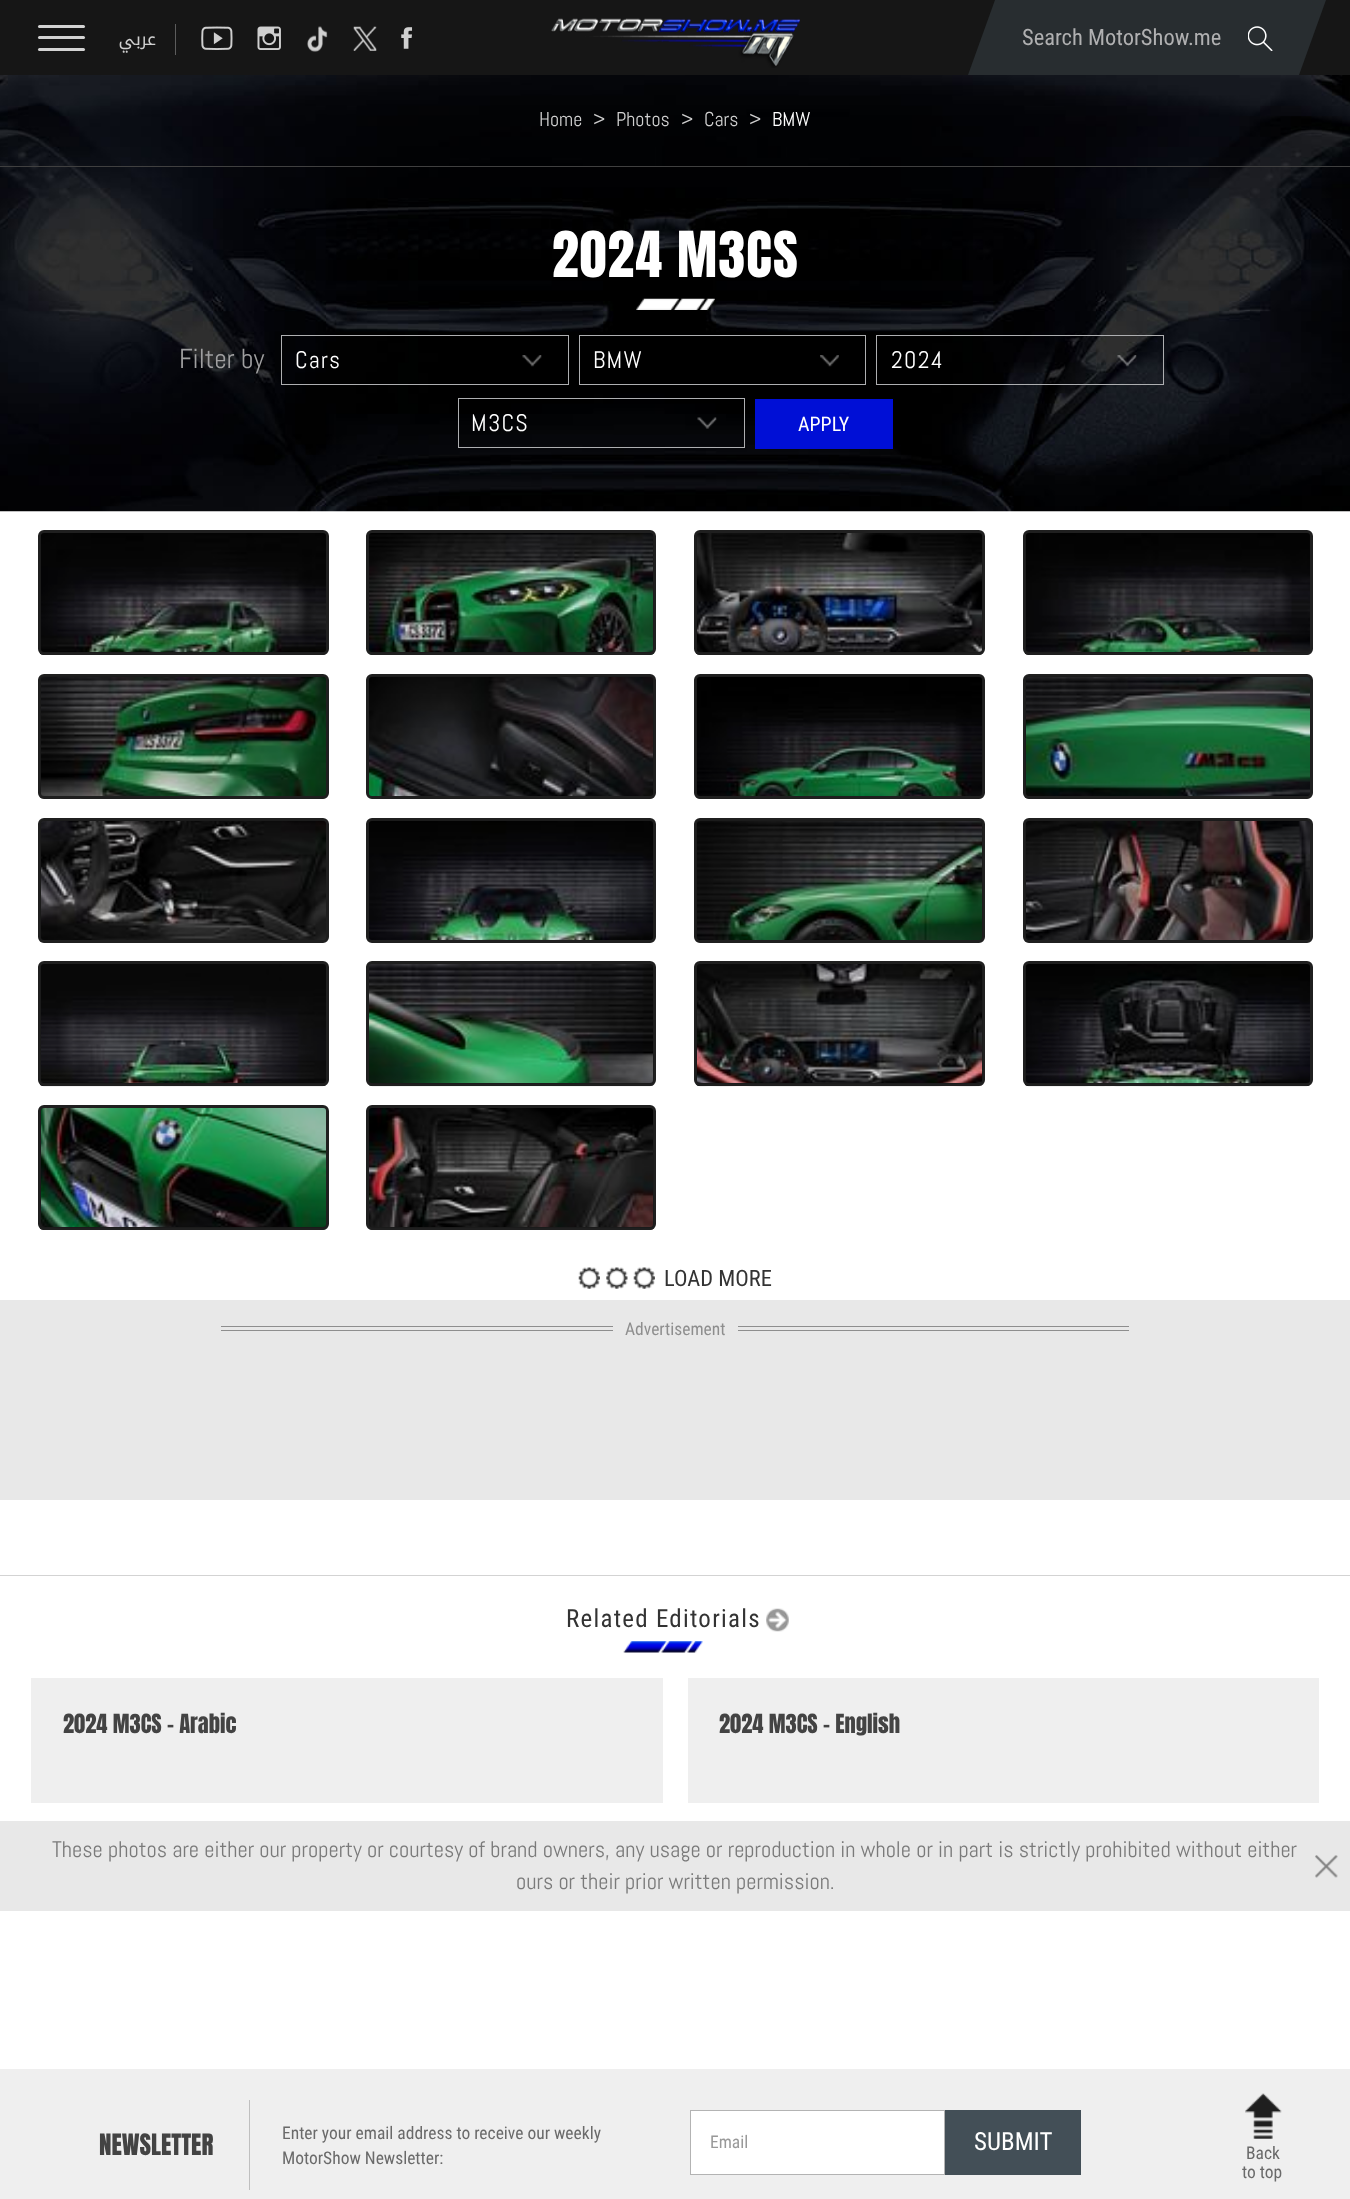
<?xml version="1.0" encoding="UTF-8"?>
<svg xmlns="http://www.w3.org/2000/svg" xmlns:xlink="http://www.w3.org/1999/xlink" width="1350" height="2199">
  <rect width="100%" height="100%" fill="#ffffff" />
  <rect width="1350" height="75" fill="#161616" />
  <rect x="38" y="25" width="47" height="3" rx="1.5" fill="#d3d3d3" />
  <rect x="38" y="36" width="47" height="3" rx="1.5" fill="#d3d3d3" />
  <rect x="38" y="48" width="47" height="3" rx="1.5" fill="#d3d3d3" />
  <rect x="175" y="24" width="1" height="31" fill="#5c5c5c" />
  <image x="201" y="26" width="32" height="24" xlink:href="image1.png" />
  <image x="257" y="26" width="24" height="24" xlink:href="image2.png" />
  <image x="307" y="26" width="21" height="26" xlink:href="image3.png" />
  <image x="353" y="26" width="24" height="25" xlink:href="image4.png" />
  <image x="401" y="27" width="12" height="22" xlink:href="image5.png" />
  <image x="551" y="18" width="249" height="50" xlink:href="image6.png" />
  <path d="M 995 0 h 331 l -27 75 h -331 z" fill="#282d30" />
  <image x="1248" y="26" width="25" height="25" xlink:href="image7.png" />
  <image x="0" y="75" width="1350" height="437" xlink:href="image8.png" />
  <rect y="166" width="1350" height="1" fill="#404040" />
  <image x="636" y="298" width="79" height="12" xlink:href="image9.png" />
  <rect x="281.5" y="335.5" width="287" height="49" fill="none" stroke="#aeafb1" />
  <image x="522" y="355" width="20" height="12" xlink:href="image10.png" />
  <rect x="579.5" y="335.5" width="286" height="49" fill="none" stroke="#aeafb1" />
  <image x="820" y="355" width="19" height="12" xlink:href="image11.png" />
  <rect x="876.5" y="335.5" width="287" height="49" fill="none" stroke="#aeafb1" />
  <image x="1117" y="355" width="20" height="12" xlink:href="image12.png" />
  <rect x="458.5" y="398.5" width="286" height="49" fill="none" stroke="#aeafb1" />
  <image x="697" y="417" width="20" height="12" xlink:href="image13.png" />
  <rect x="755" y="399" width="138" height="50" fill="#000fd6" />
  <image x="40" y="533" width="287" height="122" xlink:href="image14.png" />
  <rect x="39.5" y="531.5" width="288" height="122" rx="4.5" fill="none" stroke="#1f1f1f" stroke-width="3" />
  <rect x="40" y="533" width="286" height="120" rx="4" fill="#000000" fill-opacity="0.1" />
  <image x="368" y="533" width="286" height="122" xlink:href="image15.png" />
  <rect x="367.5" y="531.5" width="287" height="122" rx="4.5" fill="none" stroke="#1f1f1f" stroke-width="3" />
  <rect x="369" y="533" width="285" height="120" rx="4" fill="#000000" fill-opacity="0.1" />
  <image x="696" y="533" width="287" height="122" xlink:href="image16.png" />
  <rect x="695.5" y="531.5" width="288" height="122" rx="4.5" fill="none" stroke="#1f1f1f" stroke-width="3" />
  <rect x="696" y="533" width="287" height="120" rx="4" fill="#000000" fill-opacity="0.1" />
  <image x="1025" y="533" width="285" height="122" xlink:href="image17.png" />
  <rect x="1024.5" y="531.5" width="287" height="122" rx="4.5" fill="none" stroke="#1f1f1f" stroke-width="3" />
  <rect x="1025" y="533" width="285" height="120" rx="4" fill="#000000" fill-opacity="0.1" />
  <image x="40" y="677" width="287" height="122" xlink:href="image18.png" />
  <rect x="39.5" y="675.5" width="288" height="122" rx="4.5" fill="none" stroke="#1f1f1f" stroke-width="3" />
  <rect x="40" y="676" width="286" height="120" rx="4" fill="#000000" fill-opacity="0.1" />
  <image x="368" y="677" width="286" height="122" xlink:href="image19.png" />
  <rect x="367.5" y="675.5" width="287" height="122" rx="4.5" fill="none" stroke="#1f1f1f" stroke-width="3" />
  <rect x="369" y="676" width="285" height="120" rx="4" fill="#000000" fill-opacity="0.1" />
  <image x="696" y="677" width="287" height="122" xlink:href="image20.png" />
  <rect x="695.5" y="675.5" width="288" height="122" rx="4.5" fill="none" stroke="#1f1f1f" stroke-width="3" />
  <rect x="696" y="676" width="287" height="120" rx="4" fill="#000000" fill-opacity="0.1" />
  <image x="1025" y="677" width="285" height="122" xlink:href="image21.png" />
  <rect x="1024.5" y="675.5" width="287" height="122" rx="4.5" fill="none" stroke="#1f1f1f" stroke-width="3" />
  <rect x="1025" y="676" width="285" height="120" rx="4" fill="#000000" fill-opacity="0.1" />
  <image x="40" y="821" width="286" height="122" xlink:href="image22.png" />
  <rect x="39.5" y="819.5" width="288" height="122" rx="4.5" fill="none" stroke="#1f1f1f" stroke-width="3" />
  <rect x="40" y="820" width="286" height="120" rx="4" fill="#000000" fill-opacity="0.1" />
  <image x="369" y="821" width="285" height="122" xlink:href="image23.png" />
  <rect x="367.5" y="819.5" width="287" height="122" rx="4.5" fill="none" stroke="#1f1f1f" stroke-width="3" />
  <rect x="369" y="820" width="285" height="120" rx="4" fill="#000000" fill-opacity="0.1" />
  <image x="696" y="821" width="287" height="122" xlink:href="image24.png" />
  <rect x="695.5" y="819.5" width="288" height="122" rx="4.5" fill="none" stroke="#1f1f1f" stroke-width="3" />
  <rect x="696" y="820" width="287" height="120" rx="4" fill="#000000" fill-opacity="0.1" />
  <image x="1025" y="821" width="285" height="122" xlink:href="image25.png" />
  <rect x="1024.5" y="819.5" width="287" height="122" rx="4.5" fill="none" stroke="#1f1f1f" stroke-width="3" />
  <rect x="1025" y="820" width="285" height="120" rx="4" fill="#000000" fill-opacity="0.1" />
  <image x="40" y="964" width="287" height="123" xlink:href="image26.png" />
  <rect x="39.5" y="962.5" width="288" height="122" rx="4.5" fill="none" stroke="#1f1f1f" stroke-width="3" />
  <rect x="40" y="964" width="286" height="120" rx="4" fill="#000000" fill-opacity="0.1" />
  <image x="368" y="964" width="286" height="123" xlink:href="image27.png" />
  <rect x="367.5" y="962.5" width="287" height="122" rx="4.5" fill="none" stroke="#1f1f1f" stroke-width="3" />
  <rect x="369" y="964" width="285" height="120" rx="4" fill="#000000" fill-opacity="0.1" />
  <image x="696" y="964" width="287" height="123" xlink:href="image28.png" />
  <rect x="695.5" y="962.5" width="288" height="122" rx="4.5" fill="none" stroke="#1f1f1f" stroke-width="3" />
  <rect x="696" y="964" width="287" height="120" rx="4" fill="#000000" fill-opacity="0.1" />
  <image x="1025" y="964" width="285" height="123" xlink:href="image29.png" />
  <rect x="1024.5" y="962.5" width="287" height="122" rx="4.5" fill="none" stroke="#1f1f1f" stroke-width="3" />
  <rect x="1025" y="964" width="285" height="120" rx="4" fill="#000000" fill-opacity="0.1" />
  <image x="40" y="1108" width="287" height="122" xlink:href="image30.png" />
  <rect x="39.5" y="1106.5" width="288" height="122" rx="4.5" fill="none" stroke="#1f1f1f" stroke-width="3" />
  <rect x="40" y="1108" width="286" height="120" rx="4" fill="#000000" fill-opacity="0.1" />
  <image x="368" y="1108" width="286" height="122" xlink:href="image31.png" />
  <rect x="367.5" y="1106.5" width="287" height="122" rx="4.5" fill="none" stroke="#1f1f1f" stroke-width="3" />
  <rect x="369" y="1108" width="285" height="120" rx="4" fill="#000000" fill-opacity="0.1" />
  <image x="578" y="1267" width="22" height="22" xlink:href="image32.png" />
  <image x="606" y="1267" width="22" height="22" xlink:href="image33.png" />
  <image x="633" y="1267" width="22" height="22" xlink:href="image32.png" />
  <rect y="1300" width="1350" height="200" fill="#e8e8e8" />
  <rect x="221" y="1326" width="908" height="1" fill="#8e8e8e" />
  <rect x="221" y="1330" width="908" height="1" fill="#8e8e8e" />
  <rect x="613" y="1326" width="125" height="5" fill="#e8e8e8" />
  <rect y="1575" width="1350" height="1" fill="#d3d3d3" />
  <image x="623" y="1641" width="80" height="12" xlink:href="image34.png" />
  <image x="766" y="1608" width="23" height="24" xlink:href="image35.png" />
  <rect x="31" y="1678" width="632" height="125" fill="#efefef" />
  <rect x="688" y="1678" width="631" height="125" fill="#efefef" />
  <rect y="1821" width="1350" height="90" fill="#e8e8e8" />
  <image x="1315" y="1855" width="23" height="23" xlink:href="image36.png" />
  <rect y="2069" width="1350" height="130" fill="#efefef" />
  <rect x="249" y="2100" width="1" height="90" fill="#bfbfbf" />
  <rect x="690.5" y="2110.5" width="254" height="64" fill="#ffffff" stroke="#b3b3b3" />
  <rect x="945" y="2110" width="136" height="65" fill="#434f57" />
  <image x="1245" y="2093" width="37" height="46" xlink:href="image37.png" />
  <text x="156" y="45" style="font-family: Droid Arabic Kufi; font-size: 17.5px; direction: rtl; fill: #cfcfcf">عربي</text>
  <text x="1022" y="45" style="font-family: Roboto Condensed; font-size: 22.5px; fill: #b0b0b1">Search MotorShow.me</text>
  <text x="539" y="126" style="font-family: Abel; font-size: 20px; fill: #cfcfcf">Home</text>
  <text x="593" y="126" style="font-family: Abel; font-size: 20px; fill: #cfcfcf">&gt;</text>
  <text x="616" y="126" style="font-family: Abel; font-size: 20px; fill: #cfcfcf">Photos</text>
  <text x="681" y="126" style="font-family: Abel; font-size: 20px; fill: #cfcfcf">&gt;</text>
  <text x="704" y="126" style="font-family: Abel; font-size: 20px; fill: #cfcfcf">Cars</text>
  <text x="749" y="126" style="font-family: Abel; font-size: 20px; fill: #cfcfcf">&gt;</text>
  <text x="772" y="126" style="font-family: Abel; font-size: 20px; fill: #ffffff">BMW</text>
  <text x="552" y="277" style="font-family: Anton; font-size: 53.75px; letter-spacing: 1.25px; fill: #ffffff">2024 M3CS</text>
  <text x="179" y="368" style="font-family: Abel; font-size: 27.5px; fill: #9f9fa0">Filter by</text>
  <text x="295" y="368" style="font-family: Abel; font-size: 24px; letter-spacing: 1.25px; fill: #ffffff">Cars</text>
  <text x="593" y="368" style="font-family: Abel; font-size: 24px; letter-spacing: 1.25px; fill: #ffffff">BMW</text>
  <text x="891" y="368" style="font-family: Abel; font-size: 24px; letter-spacing: 1.25px; fill: #ffffff">2024</text>
  <text x="471" y="431" style="font-family: Abel; font-size: 24px; letter-spacing: 1.25px; fill: #ffffff">M3CS</text>
  <text x="798" y="431" style="font-family: Roboto Condensed; font-size: 20px; fill: #ffffff">APPLY</text>
  <text x="664" y="1286" style="font-family: Roboto Condensed; font-size: 22.5px; fill: #333333">LOAD MORE</text>
  <text x="625" y="1335" style="font-family: Roboto Condensed; font-size: 17.5px; fill: #8e8e8e">Advertisement</text>
  <text x="566" y="1627" style="font-family: Roboto Condensed; font-size: 25px; letter-spacing: 1.25px; fill: #333333">Related Editorials</text>
  <text x="63" y="1733" style="font-family: Anton; font-size: 22.5px; fill: #434343">2024 M3CS - Arabic</text>
  <text x="719" y="1733" style="font-family: Anton; font-size: 22.5px; fill: #434343">2024 M3CS - English</text>
  <text x="52" y="1857" style="font-family: Abel; font-size: 22.5px; fill: #7a7a7a">These photos are either our property or courtesy of brand owners, any usage or reproduction in whole or in part is strictly prohibited without either</text>
  <text x="516" y="1889" style="font-family: Abel; font-size: 22.5px; fill: #7a7a7a">ours or their prior written permission.</text>
  <text x="99" y="2155" style="font-family: Anton; font-size: 25px; fill: #434343">NEWSLETTER</text>
  <text x="282" y="2139" style="font-family: Roboto Condensed; font-size: 17.5px; fill: #6a6a6a">Enter your email address to receive our weekly</text>
  <text x="282" y="2164" style="font-family: Roboto Condensed; font-size: 17.5px; fill: #6a6a6a">MotorShow Newsletter:</text>
  <text x="710" y="2148" style="font-family: Roboto Condensed; font-size: 17.5px; fill: #999999">Email</text>
  <text x="974" y="2150" style="font-family: Roboto Condensed; font-size: 25px; fill: #ffffff">SUBMIT</text>
  <text x="1246" y="2159" style="font-family: Roboto Condensed; font-size: 17.5px; fill: #6a6a6a">Back</text>
  <text x="1242" y="2178" style="font-family: Roboto Condensed; font-size: 17.5px; fill: #6a6a6a">to top</text>
</svg>
